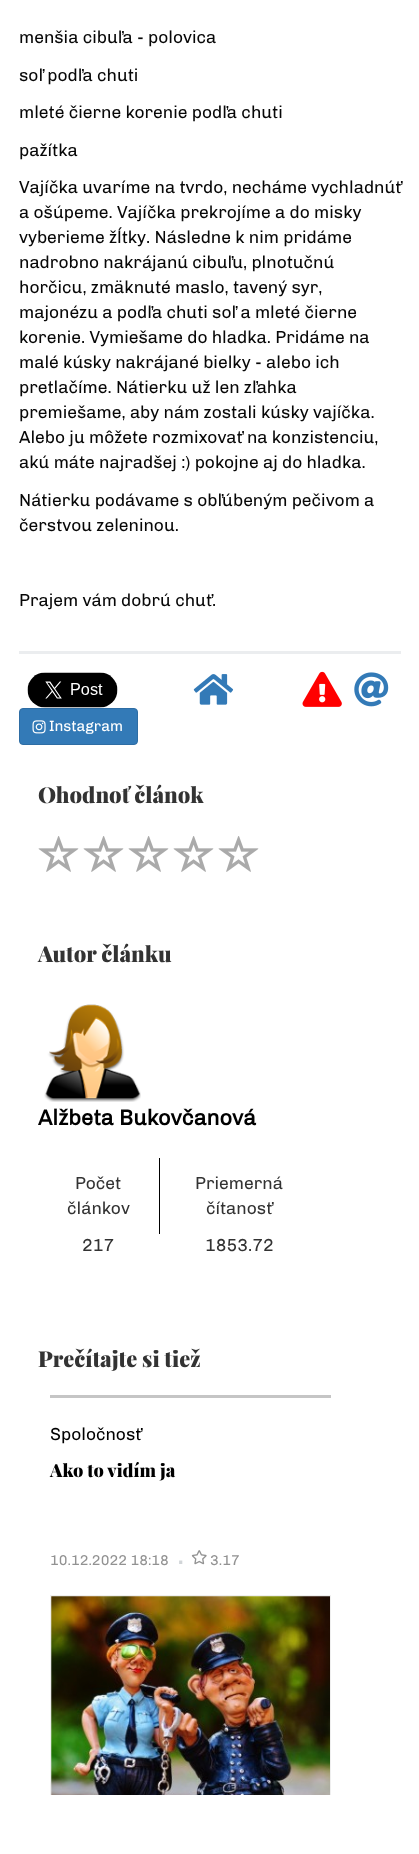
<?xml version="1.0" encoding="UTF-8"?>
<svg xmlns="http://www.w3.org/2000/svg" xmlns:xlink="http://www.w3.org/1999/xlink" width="419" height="1854">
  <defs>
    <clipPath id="clip1"><rect x="50" y="1595" width="281" height="200" /></clipPath>
  </defs>
  <rect width="100%" height="100%" fill="#ffffff" />
  <rect x="19" y="651" width="382" height="3" fill="#ebedef" />
  <image x="193" y="674" width="41" height="31" xlink:href="image1.png" />
  <image x="302" y="671" width="40" height="36" xlink:href="image2.png" />
  <image x="354" y="672" width="35" height="35" xlink:href="image3.png" />
  <image x="27" y="672" width="91" height="36" xlink:href="image4.png" />
  <rect x="19.5" y="708.5" width="118" height="36" rx="3.5" fill="#337ab7" stroke="#2e6da4" />
  <image x="32" y="720" width="14" height="14" xlink:href="image5.png" />
  <image x="38" y="836" width="41" height="36" xlink:href="image6.png" />
  <image x="83" y="836" width="41" height="36" xlink:href="image6.png" />
  <image x="128" y="836" width="41" height="36" xlink:href="image6.png" />
  <image x="173" y="836" width="41" height="36" xlink:href="image6.png" />
  <image x="218" y="836" width="41" height="36" xlink:href="image6.png" />
  <image x="44" y="1004" width="97" height="98" xlink:href="image7.png" />
  <rect x="159" y="1158" width="1" height="76" fill="#000000" />
  <rect x="50" y="1395" width="281" height="3" fill="#c5c5c5" />
  <image x="191" y="1550" width="16" height="15" xlink:href="image8.png" />
  <g clip-path="url(#clip1)">
    <rect x="50.5" y="1595.5" width="280" height="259" fill="none" stroke="#efefef" />
  </g>
  <image x="51" y="1596" width="279" height="199" xlink:href="image9.png" />
  <text x="19" y="43" style="font-family: Chivo; font-size: 17.5px; fill: #070707">menšia cibuľa - polovica</text>
  <text x="19" y="81" style="font-family: Chivo; font-size: 17.5px; fill: #070707">soľ podľa chuti</text>
  <text x="19" y="118" style="font-family: Chivo; font-size: 17.5px; fill: #070707">mleté čierne korenie podľa chuti</text>
  <text x="19" y="156" style="font-family: Chivo; font-size: 17.5px; fill: #070707">pažítka</text>
  <text x="19" y="193" style="font-family: Chivo; font-size: 17.5px; fill: #070707">Vajíčka uvaríme na tvrdo, necháme vychladnúť</text>
  <text x="19" y="218" style="font-family: Chivo; font-size: 17.5px; fill: #070707">a ošúpeme. Vajíčka prekrojíme a do misky</text>
  <text x="19" y="243" style="font-family: Chivo; font-size: 17.5px; fill: #070707">vyberieme žĺtky. Následne k nim pridáme</text>
  <text x="19" y="268" style="font-family: Chivo; font-size: 17.5px; fill: #070707">nadrobno nakrájanú cibuľu, plnotučnú</text>
  <text x="19" y="293" style="font-family: Chivo; font-size: 17.5px; fill: #070707">horčicu, zmäknuté maslo, tavený syr,</text>
  <text x="19" y="318" style="font-family: Chivo; font-size: 17.5px; fill: #070707">majonézu a podľa chuti soľ a mleté čierne</text>
  <text x="19" y="343" style="font-family: Chivo; font-size: 17.5px; fill: #070707">korenie. Vymiešame do hladka. Pridáme na</text>
  <text x="19" y="368" style="font-family: Chivo; font-size: 17.5px; fill: #070707">malé kúsky nakrájané bielky - alebo ich</text>
  <text x="19" y="393" style="font-family: Chivo; font-size: 17.5px; fill: #070707">pretlačíme. Nátierku už len zľahka</text>
  <text x="19" y="418" style="font-family: Chivo; font-size: 17.5px; fill: #070707">premiešame, aby nám zostali kúsky vajíčka.</text>
  <text x="19" y="443" style="font-family: Chivo; font-size: 17.5px; fill: #070707">Alebo ju môžete rozmixovať na konzistenciu,</text>
  <text x="19" y="468" style="font-family: Chivo; font-size: 17.5px; fill: #070707">akú máte najradšej :) pokojne aj do hladka.</text>
  <text x="19" y="506" style="font-family: Chivo; font-size: 17.5px; fill: #070707">Nátierku podávame s obľúbeným pečivom a</text>
  <text x="19" y="531" style="font-family: Chivo; font-size: 17.5px; fill: #070707">čerstvou zeleninou.</text>
  <text x="19" y="606" style="font-family: Chivo; font-size: 17.5px; fill: #070707">Prajem vám dobrú chuť.</text>
  <text x="49" y="731" style="font-family: Chivo; font-size: 15px; fill: #ffffff">Instagram</text>
  <text x="38" y="803" style="font-family: Playfair Display; font-size: 21.9px; font-weight: 900; fill: #333333">Ohodnoť článok</text>
  <text x="38" y="962" style="font-family: Playfair Display; font-size: 21.9px; font-weight: 900; fill: #333333">Autor článku</text>
  <text x="38" y="1125" style="font-family: Chivo; font-size: 21.9px; font-weight: bold; fill: #000000">Alžbeta Bukovčanová</text>
  <text x="75" y="1189" style="font-family: Chivo; font-size: 17.5px; fill: #333333">Počet</text>
  <text x="67" y="1214" style="font-family: Chivo; font-size: 17.5px; fill: #333333">článkov</text>
  <text x="195" y="1189" style="font-family: Chivo; font-size: 17.5px; fill: #333333">Priemerná</text>
  <text x="206" y="1214" style="font-family: Chivo; font-size: 17.5px; fill: #333333">čítanosť</text>
  <text x="82" y="1251" style="font-family: Chivo; font-size: 17.5px; fill: #333333">217</text>
  <text x="205" y="1251" style="font-family: Chivo; font-size: 17.5px; fill: #333333">1853.72</text>
  <text x="38" y="1367" style="font-family: Playfair Display; font-size: 21.9px; font-weight: 900; fill: #333333">Prečítajte si tiež</text>
  <text x="50" y="1440" style="font-family: Chivo; font-size: 17.5px; fill: #000000">Spoločnosť</text>
  <text x="50" y="1477" style="font-family: Playfair Display; font-size: 18px; font-weight: 900; fill: #000000">Ako to vidím ja</text>
  <text x="50" y="1565" style="font-family: Chivo; font-size: 14.25px; fill: #929292">10.12.2022 18:18</text>
  <text x="177" y="1564" style="font-family: Chivo; font-size: 31px; fill: #d1d5d8">.</text>
  <text x="210" y="1565" style="font-family: Chivo; font-size: 14.25px; fill: #929292">3.17</text>
</svg>
